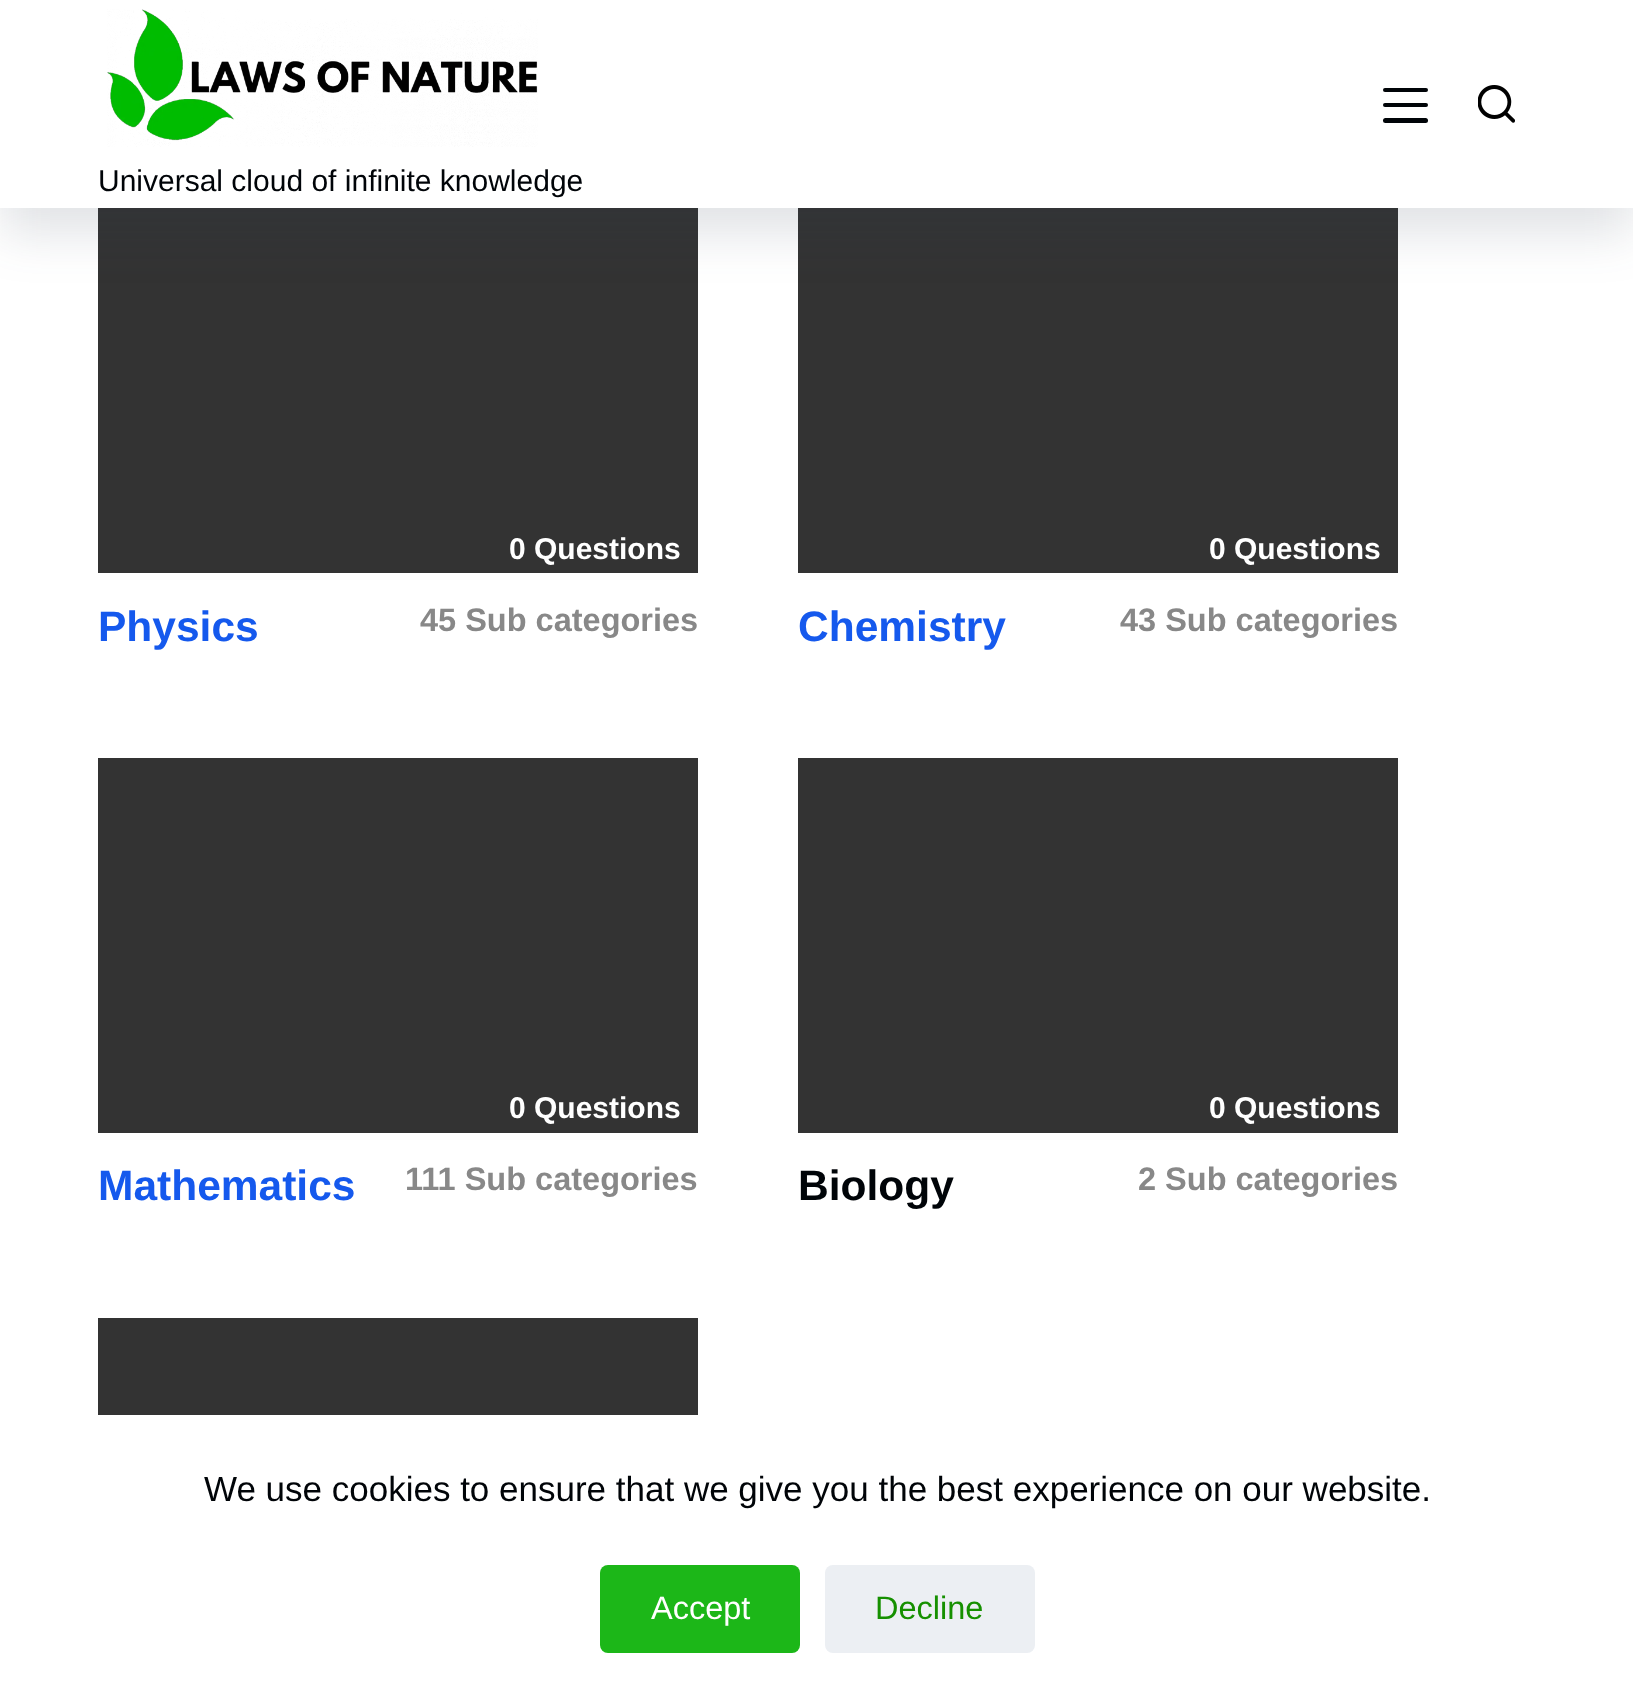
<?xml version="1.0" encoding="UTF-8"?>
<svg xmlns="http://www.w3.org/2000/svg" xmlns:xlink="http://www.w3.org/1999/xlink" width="1633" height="1702">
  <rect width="100%" height="100%" fill="#ffffff" />
  <rect x="98" y="208" width="600" height="365" fill="#333333" />
  <rect x="798" y="208" width="600" height="365" fill="#333333" />
  <rect y="25" width="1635" height="208" fill="#2c3e50" fill-opacity="0.15" filter="blur(25px)" />
  <rect width="1633" height="208" fill="#ffffff" />
  <rect x="1383" y="88" width="45" height="4" rx="2" fill="#000408" />
  <rect x="1383" y="103" width="45" height="4" rx="2" fill="#000408" />
  <rect x="1383" y="118" width="45" height="5" rx="2.5" fill="#000408" />
  <image x="1478" y="85" width="37" height="38" xlink:href="image1.png" />
  <image x="107" y="9" width="431" height="138" xlink:href="image2.png" />
  <rect x="98" y="758" width="600" height="375" fill="#333333" />
  <rect x="798" y="758" width="600" height="375" fill="#333333" />
  <rect x="98" y="1318" width="600" height="97" fill="#333333" />
  <rect x="600" y="1565" width="200" height="88" rx="8" fill="#1cb718" />
  <rect x="825" y="1565" width="210" height="88" rx="8" fill="#eceff3" />
  <text x="98" y="191" style="font-family: Liberation Sans; font-size: 30px; fill: #000408">Universal cloud of infinite knowledge</text>
  <text x="509" y="559" style="font-family: Liberation Sans; font-size: 30px; font-weight: bold; fill: #ffffff">0 Questions</text>
  <text x="98" y="641" style="font-family: Liberation Sans; font-size: 42.5px; font-weight: bold; fill: #1559ed">Physics</text>
  <text x="420" y="631" style="font-family: Liberation Sans; font-size: 32.5px; font-weight: bold; fill: #888888">45 Sub categories</text>
  <text x="1209" y="559" style="font-family: Liberation Sans; font-size: 30px; font-weight: bold; fill: #ffffff">0 Questions</text>
  <text x="798" y="641" style="font-family: Liberation Sans; font-size: 42.5px; font-weight: bold; fill: #1559ed">Chemistry</text>
  <text x="1120" y="631" style="font-family: Liberation Sans; font-size: 32.5px; font-weight: bold; fill: #888888">43 Sub categories</text>
  <text x="509" y="1118" style="font-family: Liberation Sans; font-size: 30px; font-weight: bold; fill: #ffffff">0 Questions</text>
  <text x="98" y="1200" style="font-family: Liberation Sans; font-size: 42.5px; font-weight: bold; fill: #1559ed">Mathematics</text>
  <text x="405" y="1190" style="font-family: Liberation Sans; font-size: 32.5px; font-weight: bold; fill: #888888">111 Sub categories</text>
  <text x="1209" y="1118" style="font-family: Liberation Sans; font-size: 30px; font-weight: bold; fill: #ffffff">0 Questions</text>
  <text x="798" y="1200" style="font-family: Liberation Sans; font-size: 42.5px; font-weight: bold; fill: #000408">Biology</text>
  <text x="1138" y="1190" style="font-family: Liberation Sans; font-size: 32.5px; font-weight: bold; fill: #888888">2 Sub categories</text>
  <text x="204" y="1501" style="font-family: Liberation Sans; font-size: 35px; fill: #000408">We use cookies to ensure that we give you the best experience on our website.</text>
  <text x="651" y="1619" style="font-family: Liberation Sans; font-size: 32.5px; fill: #ffffff">Accept</text>
  <text x="875" y="1619" style="font-family: Liberation Sans; font-size: 32.5px; fill: #169000">Decline</text>
</svg>
